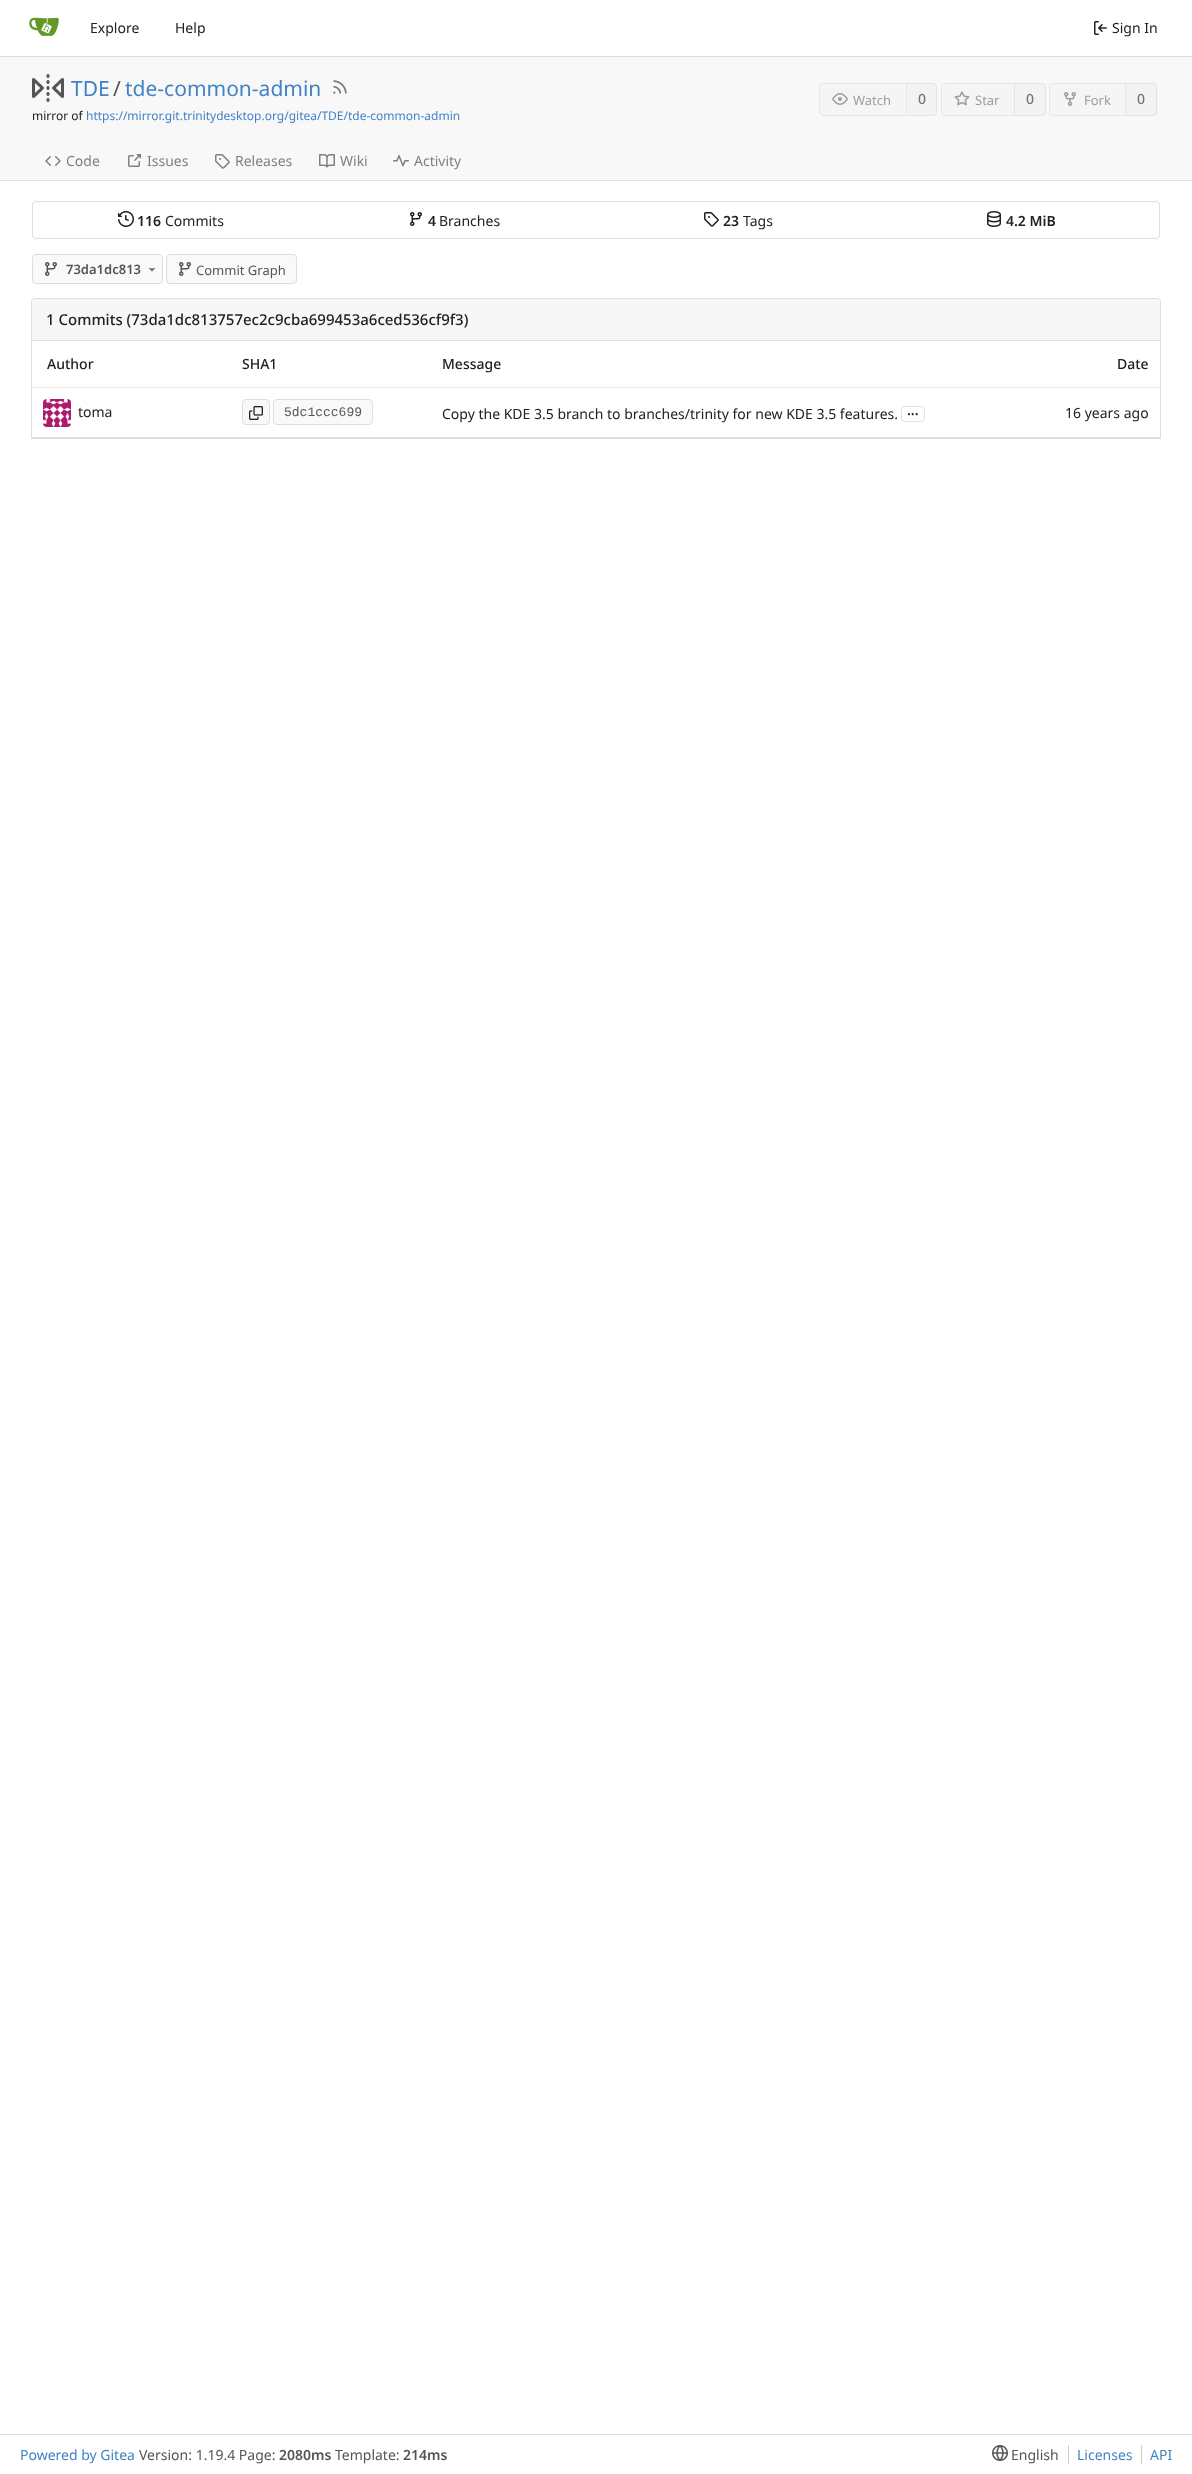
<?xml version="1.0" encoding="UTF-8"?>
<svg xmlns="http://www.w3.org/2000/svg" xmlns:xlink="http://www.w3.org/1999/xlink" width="1192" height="2474">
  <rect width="100%" height="100%" fill="#ffffff" />
  <rect y="56" width="1192" height="1" fill="#dedede" />
  <image x="29" y="17" width="30" height="19" xlink:href="image1.png" />
  <image x="1094" y="21" width="13" height="14" xlink:href="image2.png" />
  <rect y="57" width="1192" height="123" fill="#f8f8f8" />
  <image x="32" y="74" width="32" height="28" xlink:href="image3.png" />
  <image x="333" y="80" width="14" height="14" xlink:href="image4.png" />
  <path d="M 823 83.5 h 83.5 v 32 h -83.5 c -2 0 -3.5 -1.5 -3.5 -3.5 v -25 c 0 -2 1.5 -3.5 3.5 -3.5 z" fill="#f5f5f5" stroke="#e6e6e6" />
  <image x="832" y="93" width="16" height="12" xlink:href="image5.png" />
  <path d="M 907 83 h 26 c 2 0 4 2 4 4 v 25 c 0 2 -2 4 -4 4 h -26 z" fill="#f3f3f3" />
  <path d="M 907 83 h 26 c 2 0 4 2 4 4 v 25 c 0 2 -2 4 -4 4 h -26 z m 0 1 h 26 c 1.5 0 3 1.5 3 3 v 25 c 0 1.5 -1.5 3 -3 3 h -26 z" fill="#e4e4e4" fill-rule="evenodd" />
  <path d="M 945 83.5 h 69.5 v 32 h -69.5 c -2 0 -3.5 -1.5 -3.5 -3.5 v -25 c 0 -2 1.5 -3.5 3.5 -3.5 z" fill="#f5f5f5" stroke="#e6e6e6" />
  <image x="954" y="91" width="16" height="15" xlink:href="image6.png" />
  <path d="M 1015 83 h 27 c 2 0 4 2 4 4 v 25 c 0 2 -2 4 -4 4 h -27 z" fill="#f3f3f3" />
  <path d="M 1015 83 h 27 c 2 0 4 2 4 4 v 25 c 0 2 -2 4 -4 4 h -27 z m 0 1 h 27 c 1.5 0 3 1.5 3 3 v 25 c 0 1.5 -1.5 3 -3 3 h -27 z" fill="#e4e4e4" fill-rule="evenodd" />
  <path d="M 1053 83.5 h 72.5 v 32 h -72.5 c -2 0 -3.5 -1.5 -3.5 -3.5 v -25 c 0 -2 1.5 -3.5 3.5 -3.5 z" fill="#f5f5f5" stroke="#e6e6e6" />
  <image x="1064" y="92" width="12" height="14" xlink:href="image7.png" />
  <path d="M 1126 83 h 27 c 2 0 4 2 4 4 v 25 c 0 2 -2 4 -4 4 h -27 z" fill="#f3f3f3" />
  <path d="M 1126 83 h 27 c 2 0 4 2 4 4 v 25 c 0 2 -2 4 -4 4 h -27 z m 0 1 h 27 c 1.5 0 3 1.5 3 3 v 25 c 0 1.5 -1.5 3 -3 3 h -27 z" fill="#e4e4e4" fill-rule="evenodd" />
  <image x="45" y="156" width="16" height="10" xlink:href="image8.png" />
  <image x="128" y="154" width="13" height="13" xlink:href="image9.png" />
  <image x="215" y="154" width="15" height="15" xlink:href="image10.png" />
  <image x="319" y="154" width="16" height="14" xlink:href="image11.png" />
  <image x="393" y="155" width="16" height="12" xlink:href="image12.png" />
  <rect y="180" width="1192" height="1" fill="#dedede" />
  <rect x="32.5" y="201.5" width="1127" height="37" rx="3.5" fill="none" stroke="#dedede" />
  <image x="118" y="211" width="16" height="16" xlink:href="image13.png" />
  <image x="410" y="212" width="12" height="14" xlink:href="image14.png" />
  <image x="704" y="212" width="15" height="15" xlink:href="image15.png" />
  <image x="987" y="211" width="14" height="16" xlink:href="image16.png" />
  <rect x="32.5" y="254.5" width="130" height="29" rx="3.5" fill="#f9f9f9" stroke="#dddddd" />
  <image x="45" y="262" width="12" height="14" xlink:href="image17.png" />
  <image x="148" y="268" width="8" height="4" xlink:href="image18.png" />
  <rect x="166.5" y="254.5" width="130" height="29" rx="3.5" fill="#f9f9f9" stroke="#dddddd" />
  <image x="179" y="262" width="12" height="14" xlink:href="image17.png" />
  <path d="M 35 298.5 h 1122 c 2 0 3.5 1.5 3.5 3.5 v 38.5 h -1129 v -38.5 c 0 -2 1.5 -3.5 3.5 -3.5 z" fill="#f7f7f7" stroke="#dedede" />
  <rect x="1160" y="341" width="1" height="98" fill="#dedede" />
  <rect x="31" y="438" width="1130" height="1" fill="#dedede" />
  <rect x="31" y="341" width="1" height="98" fill="#dedede" />
  <rect x="32" y="387" width="1128" height="1" fill="#e9e9e9" />
  <rect x="32" y="437" width="1128" height="1" fill="#dedede" />
  <image x="43" y="399" width="28" height="28" xlink:href="image19.png" />
  <rect x="242.5" y="399.5" width="27" height="25" rx="3.5" fill="#f9f9f9" stroke="#dddddd" />
  <image x="249" y="406" width="14" height="14" xlink:href="image20.png" />
  <rect x="273.5" y="399.5" width="99" height="25" rx="3.5" fill="#f9f9f9" stroke="#dddddd" />
  <rect x="901.5" y="406.5" width="23" height="15" rx="3.5" fill="none" stroke="#e2e2e2" />
  <rect y="2434" width="1192" height="1" fill="#dedede" />
  <image x="992" y="2445" width="16" height="16" xlink:href="image21.png" />
  <rect x="1068" y="2445" width="1" height="19" fill="#cecece" />
  <rect x="1141" y="2445" width="1" height="19" fill="#cecece" />
  <text x="90" y="33" style="font-family: Noto Sans; font-size: 14px; fill: #212121">Explore</text>
  <text x="175" y="33" style="font-family: Noto Sans; font-size: 14px; fill: #212121">Help</text>
  <text x="1112" y="33" style="font-family: Noto Sans; font-size: 14px; fill: #212121">Sign In</text>
  <text x="71" y="96" style="font-family: Noto Sans; font-size: 21px; fill: #4183c4">TDE</text>
  <text x="113" y="96" style="font-family: Noto Sans; font-size: 21px; fill: #555555">/</text>
  <text x="125" y="96" style="font-family: Noto Sans; font-size: 21px; fill: #4183c4">tde-common-admin</text>
  <text x="32" y="120" style="font-family: Noto Sans; font-size: 12px; fill: #212121">mirror of</text>
  <text x="86" y="120" style="font-family: Noto Sans; font-size: 12px; fill: #4183c4">https://mirror.git.trinitydesktop.org/gitea/TDE/tde-common-admin</text>
  <text x="853" y="105" style="font-family: Noto Sans; font-size: 13px; fill: #9e9e9e">Watch</text>
  <text x="918" y="104" style="font-family: Noto Sans; font-size: 14px; font-weight: 500; fill: #747474">0</text>
  <text x="975" y="105" style="font-family: Noto Sans; font-size: 13px; fill: #9e9e9e">Star</text>
  <text x="1026" y="104" style="font-family: Noto Sans; font-size: 14px; font-weight: 500; fill: #747474">0</text>
  <text x="1084" y="105" style="font-family: Noto Sans; font-size: 13px; fill: #9e9e9e">Fork</text>
  <text x="1137" y="104" style="font-family: Noto Sans; font-size: 14px; font-weight: 500; fill: #747474">0</text>
  <text x="66" y="166" style="font-family: Noto Sans; font-size: 14px; fill: #808080">Code</text>
  <text x="147" y="166" style="font-family: Noto Sans; font-size: 14px; fill: #808080">Issues</text>
  <text x="235" y="166" style="font-family: Noto Sans; font-size: 14px; fill: #808080">Releases</text>
  <text x="340" y="166" style="font-family: Noto Sans; font-size: 14px; fill: #808080">Wiki</text>
  <text x="414" y="166" style="font-family: Noto Sans; font-size: 14px; fill: #808080">Activity</text>
  <text x="137" y="226" style="font-family: Noto Sans; font-size: 14px; font-weight: 600; fill: #212121">116</text>
  <text x="165" y="226" style="font-family: Noto Sans; font-size: 14px; fill: #212121">Commits</text>
  <text x="428" y="226" style="font-family: Noto Sans; font-size: 14px; font-weight: 600; fill: #212121">4</text>
  <text x="439" y="226" style="font-family: Noto Sans; font-size: 14px; fill: #212121">Branches</text>
  <text x="723" y="226" style="font-family: Noto Sans; font-size: 14px; font-weight: 600; fill: #212121">23</text>
  <text x="743" y="226" style="font-family: Noto Sans; font-size: 14px; fill: #212121">Tags</text>
  <text x="1006" y="226" style="font-family: Noto Sans; font-size: 14px; font-weight: 600; fill: #212121">4.2 MiB</text>
  <text x="66" y="274" style="font-family: Noto Sans; font-size: 13px; font-weight: 600; fill: #555555">73da1dc813</text>
  <text x="196" y="275" style="font-family: Noto Sans; font-size: 13px; fill: #555555">Commit Graph</text>
  <text x="46" y="325" style="font-family: Noto Sans; font-size: 15px; font-weight: 500; fill: #212121">1 Commits (73da1dc813757ec2c9cba699453a6ced536cf9f3)</text>
  <text x="47" y="369" style="font-family: Noto Sans; font-size: 14px; font-weight: 500; fill: #212121">Author</text>
  <text x="242" y="369" style="font-family: Noto Sans; font-size: 14px; font-weight: 500; fill: #212121">SHA1</text>
  <text x="442" y="369" style="font-family: Noto Sans; font-size: 14px; font-weight: 500; fill: #212121">Message</text>
  <text x="1117" y="369" style="font-family: Noto Sans; font-size: 14px; font-weight: 500; fill: #212121">Date</text>
  <text x="78" y="417" style="font-family: Noto Sans; font-size: 14px; fill: #212121">toma</text>
  <text x="284" y="416" style="font-family: Liberation Mono; font-size: 13px; fill: #555555">5dc1ccc699</text>
  <text x="442" y="419" style="font-family: Noto Sans; font-size: 14px; fill: #212121">Copy the KDE 3.5 branch to branches/trinity for new KDE 3.5 features.</text>
  <text x="907" y="415" style="font-family: Noto Sans; font-size: 14px; font-weight: 600; fill: #212121">...</text>
  <text x="1065" y="418" style="font-family: Noto Sans; font-size: 14px; fill: #212121">16 years ago</text>
  <text x="20" y="2460" style="font-family: Noto Sans; font-size: 14px; fill: #4183c4">Powered by Gitea</text>
  <text x="139" y="2460" style="font-family: Noto Sans; font-size: 14px; fill: #555555">Version: 1.19.4 Page:</text>
  <text x="279" y="2460" style="font-family: Noto Sans; font-size: 14px; font-weight: 600; fill: #555555">2080ms</text>
  <text x="335" y="2460" style="font-family: Noto Sans; font-size: 14px; fill: #555555">Template:</text>
  <text x="403" y="2460" style="font-family: Noto Sans; font-size: 14px; font-weight: 600; fill: #555555">214ms</text>
  <text x="1011" y="2460" style="font-family: Noto Sans; font-size: 14px; fill: #555555">English</text>
  <text x="1077" y="2460" style="font-family: Noto Sans; font-size: 14px; fill: #4183c4">Licenses</text>
  <text x="1150" y="2460" style="font-family: Noto Sans; font-size: 14px; fill: #4183c4">API</text>
</svg>
